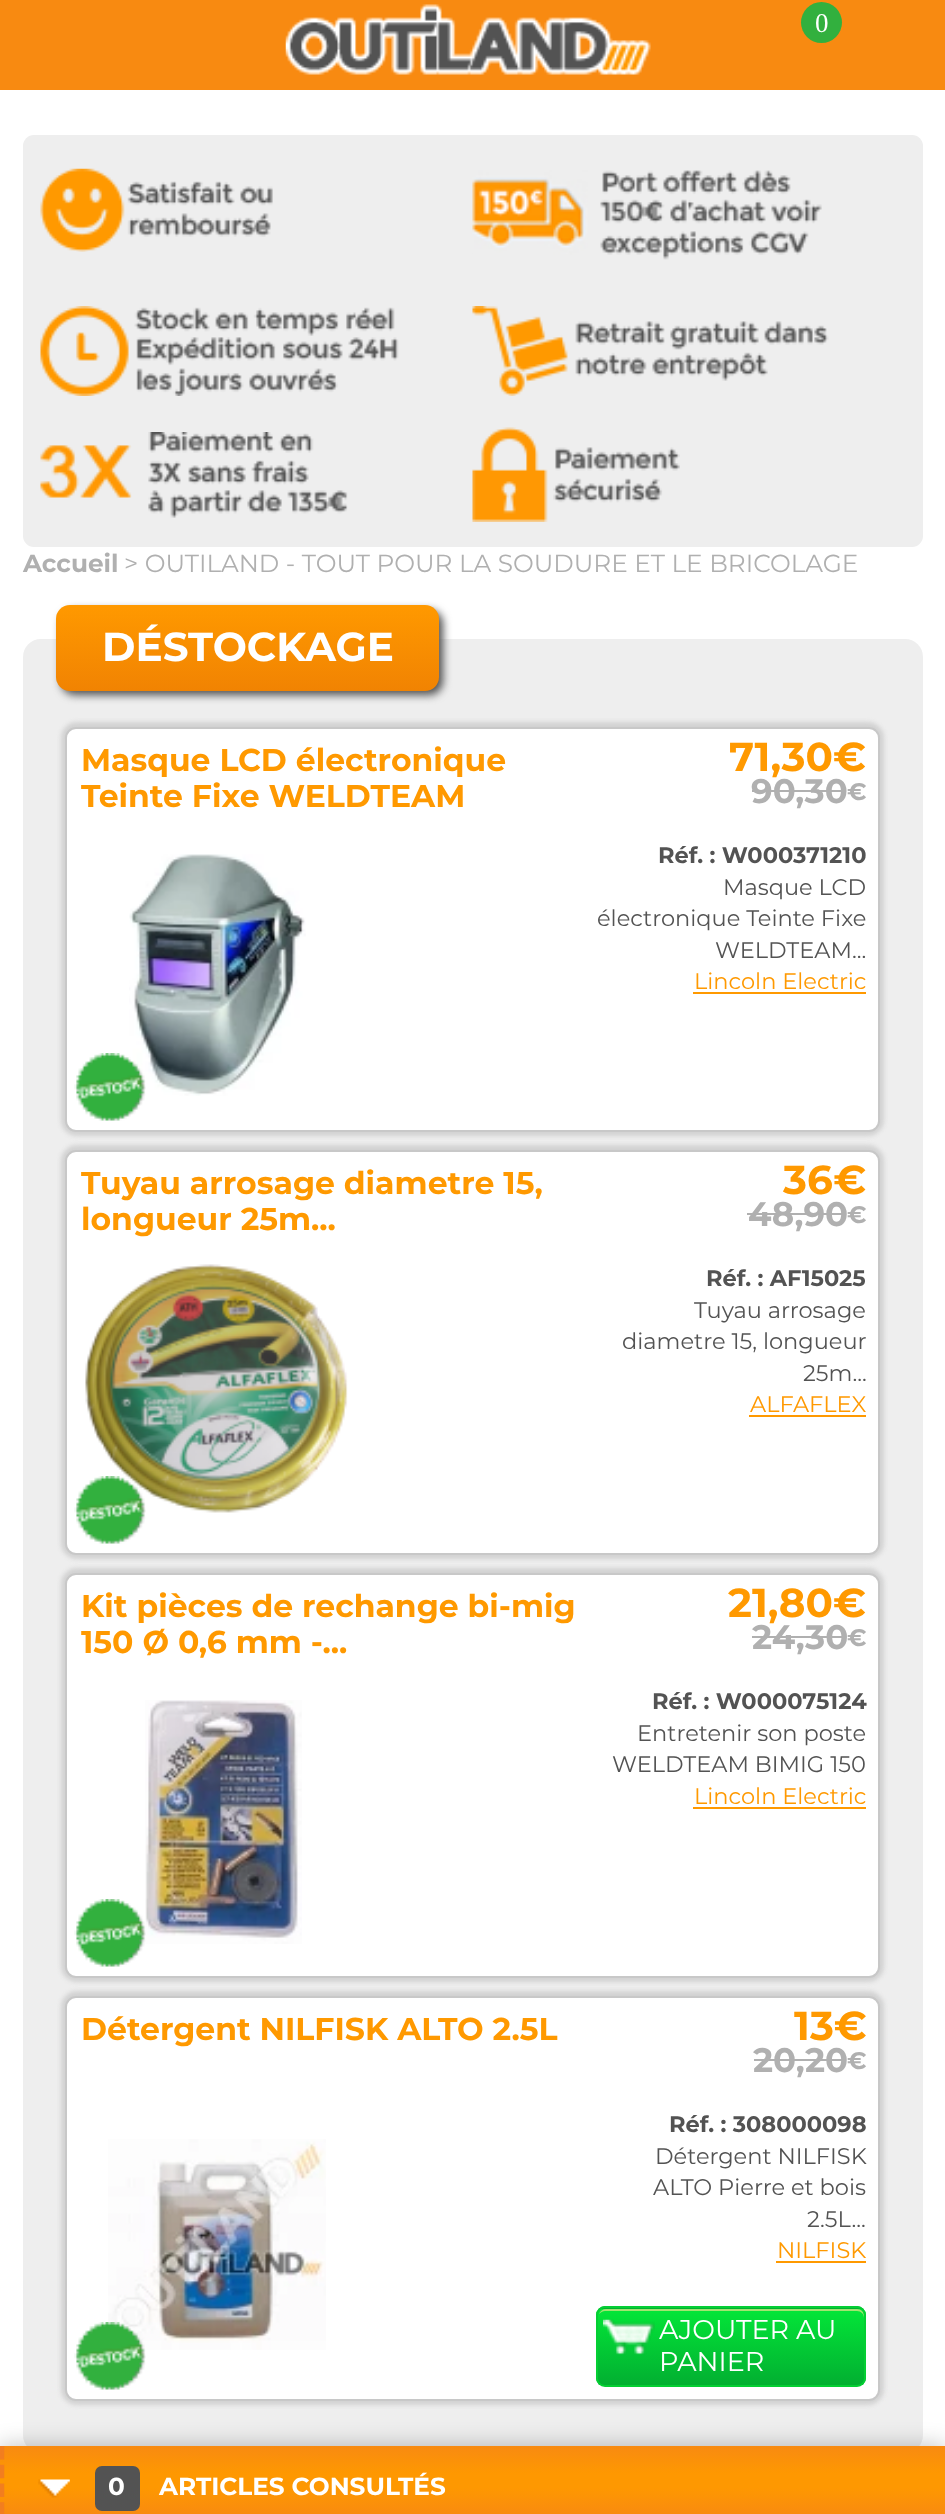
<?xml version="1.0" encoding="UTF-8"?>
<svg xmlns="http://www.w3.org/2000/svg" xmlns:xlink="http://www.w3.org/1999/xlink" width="945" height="2514">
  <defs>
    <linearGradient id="g1" gradientUnits="userSpaceOnUse" x1="248" y1="605" x2="248" y2="691"><stop offset="0" stop-color="#ff9900" /><stop offset="1" stop-color="#f18302" /></linearGradient>
    <clipPath id="clip1"><rect x="596" y="2306" width="270" height="81" rx="9" /></clipPath>
    <linearGradient id="g2" gradientUnits="userSpaceOnUse" x1="731" y1="2232" x2="731" y2="2309"><stop offset="0" stop-color="#03e638" /><stop offset="1" stop-color="#02af31" /></linearGradient>
    <linearGradient id="g3" gradientUnits="userSpaceOnUse" x1="731" y1="2309" x2="731" y2="2385"><stop offset="0" stop-color="#03e638" /><stop offset="1" stop-color="#02af31" /></linearGradient>
    <linearGradient id="g4" gradientUnits="userSpaceOnUse" x1="473" y1="2446" x2="473" y2="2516"><stop offset="0" stop-color="#f88a11" /><stop offset="0.4" stop-color="#fe9801" /><stop offset="0.6" stop-color="#fe9801" /><stop offset="1" stop-color="#f88a11" /></linearGradient>
  </defs>
  <rect width="100%" height="100%" fill="#ffffff" />
  <rect width="945" height="90" fill="#f88a11" />
  <image x="285" y="4" width="366" height="71" xlink:href="image1.png" />
  <circle cx="821.5" cy="22.5" r="20.5" fill="#32b03e" />
  <rect x="23" y="135" width="900" height="412" rx="11" fill="#eeeeee" />
  <image x="40" y="168" width="233" height="84" xlink:href="image2.png" />
  <image x="472" y="170" width="350" height="90" xlink:href="image3.png" />
  <image x="40" y="306" width="359" height="90" xlink:href="image4.png" />
  <image x="472" y="306" width="357" height="90" xlink:href="image5.png" />
  <image x="40" y="432" width="308" height="86" xlink:href="image6.png" />
  <image x="472" y="427" width="208" height="95" xlink:href="image7.png" />
  <rect x="23" y="639" width="900" height="1814" rx="18" fill="#eeeeee" />
  <rect x="61" y="610" width="382" height="85" rx="14" fill="#505050" filter="blur(4.5px)" />
  <rect x="56" y="605" width="383" height="86" rx="14" fill="url(#g1)" />
  <rect x="61" y="722" width="823" height="414" rx="16" fill="#d2d2d2" filter="blur(2px)" />
  <rect x="66" y="728" width="813" height="403" rx="10" fill="#ffffff" stroke="#c8c8c8" stroke-width="2" />
  <rect x="752" y="790" width="94" height="2" fill="#b0b0b0" />
  <image x="129" y="854" width="177" height="242" xlink:href="image9.png" />
  <image x="74" y="1053" width="72" height="68" xlink:href="image8.png" />
  <rect x="693" y="992" width="173" height="2" fill="#ff9900" />
  <rect x="61" y="1145" width="823" height="414" rx="16" fill="#d2d2d2" filter="blur(2px)" />
  <rect x="66" y="1151" width="813" height="403" rx="10" fill="#ffffff" stroke="#c8c8c8" stroke-width="2" />
  <rect x="747" y="1213" width="99" height="2" fill="#b0b0b0" />
  <image x="85" y="1264" width="263" height="249" xlink:href="image10.png" />
  <rect x="749" y="1415" width="117" height="2" fill="#ff9900" />
  <image x="74" y="1476" width="72" height="68" xlink:href="image11.png" />
  <rect x="61" y="1568" width="823" height="414" rx="16" fill="#d2d2d2" filter="blur(2px)" />
  <rect x="66" y="1574" width="813" height="403" rx="10" fill="#ffffff" stroke="#c8c8c8" stroke-width="2" />
  <rect x="752" y="1636" width="94" height="2" fill="#b0b0b0" />
  <image x="145" y="1700" width="157" height="244" xlink:href="image13.png" />
  <image x="74" y="1899" width="72" height="68" xlink:href="image12.png" />
  <rect x="693" y="1807" width="173" height="2" fill="#ff9900" />
  <rect x="61" y="1991" width="823" height="414" rx="16" fill="#d2d2d2" filter="blur(2px)" />
  <rect x="66" y="1997" width="813" height="403" rx="10" fill="#ffffff" stroke="#c8c8c8" stroke-width="2" />
  <rect x="754" y="2059" width="92" height="2" fill="#b0b0b0" />
  <image x="108" y="2139" width="218" height="211" xlink:href="image14.png" />
  <rect x="776" y="2261" width="90" height="2" fill="#ff9900" />
  <image x="74" y="2322" width="72" height="68" xlink:href="image15.png" />
  <g clip-path="url(#clip1)">
    <rect x="596" y="2306" width="270" height="3" fill="url(#g2)" />
    <rect x="596" y="2309" width="270" height="76" fill="url(#g3)" />
  </g>
  <path d="M 605 2311 h 252 c 4 0 7 3 7 7 v -2 c 0 -4 -3 -7 -7 -7 h -251 c -3 0 -6 2 -7 5 c 2 -2 4 -3 6 -3 z" fill="#a4e271" />
  <rect x="597" y="2307" width="268" height="79" rx="8" fill="none" stroke="#04cf33" stroke-width="2" />
  <image x="603" y="2319" width="52" height="36" xlink:href="image16.png" />
  <rect y="2446" width="945" height="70" fill="#000000" fill-opacity="0.25" filter="blur(11px)" />
  <rect y="2446" width="945" height="68" fill="url(#g4)" />
  <path d="M 2 2446 v 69.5" fill="none" stroke="#f27e1f" stroke-width="4.5" stroke-dasharray="13.5 5.24" />
  <image x="38" y="2479" width="32" height="19" xlink:href="image17.png" />
  <rect x="95" y="2466" width="45" height="45" rx="7" fill="#535353" />
  <text x="815" y="32" style="font-family: Liberation Serif; font-size: 27px; fill: #ffffff">0</text>
  <text x="23" y="572" style="font-family: Montserrat; font-size: 24.75px; font-weight: bold; fill: #b0b0b0">Accueil</text>
  <text x="124" y="572" style="font-family: Montserrat; font-size: 24.75px; fill: #b0b0b0">&gt; OUTILAND - TOUT POUR LA SOUDURE ET LE BRICOLAGE</text>
  <text x="102" y="661" style="font-family: Montserrat; font-size: 40.5px; font-weight: bold; fill: #ffffff">DÉSTOCKAGE</text>
  <text x="81" y="771" style="font-family: Montserrat; font-size: 31.5px; font-weight: bold; fill: #ff9900">Masque LCD électronique</text>
  <text x="81" y="807" style="font-family: Montserrat; font-size: 31.5px; font-weight: bold; fill: #ff9900">Teinte Fixe WELDTEAM</text>
  <text x="729" y="771" style="font-family: Montserrat; font-size: 40.5px; font-weight: bold; fill: #ff9900">71,30€</text>
  <text x="751" y="803" style="font-family: Montserrat; font-size: 34px; font-weight: bold; fill: #b0b0b0">90,30</text>
  <text x="847" y="800" style="font-family: Montserrat; font-size: 24px; font-weight: bold; fill: #b0b0b0">€</text>
  <text x="658" y="863" style="font-family: Montserrat; font-size: 22.5px; font-weight: bold; fill: #535353">Réf. : W000371210</text>
  <text x="723" y="895" style="font-family: Montserrat; font-size: 22.5px; fill: #535353">Masque LCD</text>
  <text x="597" y="926" style="font-family: Montserrat; font-size: 22.5px; fill: #535353">électronique Teinte Fixe</text>
  <text x="715" y="958" style="font-family: Montserrat; font-size: 22.5px; fill: #535353">WELDTEAM...</text>
  <text x="694" y="989" style="font-family: Montserrat; font-size: 22.5px; fill: #ff9900">Lincoln Electric</text>
  <text x="81" y="1194" style="font-family: Montserrat; font-size: 31.5px; font-weight: bold; fill: #ff9900">Tuyau arrosage diametre 15,</text>
  <text x="81" y="1230" style="font-family: Montserrat; font-size: 31.5px; font-weight: bold; fill: #ff9900">longueur 25m...</text>
  <text x="783" y="1194" style="font-family: Montserrat; font-size: 40.5px; font-weight: bold; fill: #ff9900">36€</text>
  <text x="748" y="1226" style="font-family: Montserrat; font-size: 34px; font-weight: bold; fill: #b0b0b0">48,90</text>
  <text x="847" y="1223" style="font-family: Montserrat; font-size: 24px; font-weight: bold; fill: #b0b0b0">€</text>
  <text x="706" y="1286" style="font-family: Montserrat; font-size: 22.5px; font-weight: bold; fill: #535353">Réf. : AF15025</text>
  <text x="694" y="1318" style="font-family: Montserrat; font-size: 22.5px; fill: #535353">Tuyau arrosage</text>
  <text x="622" y="1349" style="font-family: Montserrat; font-size: 22.5px; fill: #535353">diametre 15, longueur</text>
  <text x="803" y="1381" style="font-family: Montserrat; font-size: 22.5px; fill: #535353">25m...</text>
  <text x="750" y="1412" style="font-family: Montserrat; font-size: 22.5px; fill: #ff9900">ALFAFLEX</text>
  <text x="81" y="1617" style="font-family: Montserrat; font-size: 31.5px; font-weight: bold; fill: #ff9900">Kit pièces de rechange bi-mig</text>
  <text x="81" y="1653" style="font-family: Montserrat; font-size: 31.5px; font-weight: bold; fill: #ff9900">150 Ø 0,6 mm -...</text>
  <text x="728" y="1617" style="font-family: Montserrat; font-size: 40.5px; font-weight: bold; fill: #ff9900">21,80€</text>
  <text x="752" y="1649" style="font-family: Montserrat; font-size: 34px; font-weight: bold; fill: #b0b0b0">24,30</text>
  <text x="847" y="1646" style="font-family: Montserrat; font-size: 24px; font-weight: bold; fill: #b0b0b0">€</text>
  <text x="652" y="1709" style="font-family: Montserrat; font-size: 22.5px; font-weight: bold; fill: #535353">Réf. : W000075124</text>
  <text x="637" y="1741" style="font-family: Montserrat; font-size: 22.5px; fill: #535353">Entretenir son poste</text>
  <text x="612" y="1772" style="font-family: Montserrat; font-size: 22.5px; fill: #535353">WELDTEAM BIMIG 150</text>
  <text x="694" y="1804" style="font-family: Montserrat; font-size: 22.5px; fill: #ff9900">Lincoln Electric</text>
  <text x="81" y="2040" style="font-family: Montserrat; font-size: 31.5px; font-weight: bold; fill: #ff9900">Détergent NILFISK ALTO 2.5L</text>
  <text x="794" y="2040" style="font-family: Montserrat; font-size: 40.5px; font-weight: bold; fill: #ff9900">13€</text>
  <text x="753" y="2072" style="font-family: Montserrat; font-size: 34px; font-weight: bold; fill: #b0b0b0">20,20</text>
  <text x="847" y="2069" style="font-family: Montserrat; font-size: 24px; font-weight: bold; fill: #b0b0b0">€</text>
  <text x="669" y="2132" style="font-family: Montserrat; font-size: 22.5px; font-weight: bold; fill: #535353">Réf. : 308000098</text>
  <text x="655" y="2164" style="font-family: Montserrat; font-size: 22.5px; fill: #535353">Détergent NILFISK</text>
  <text x="653" y="2195" style="font-family: Montserrat; font-size: 22.5px; fill: #535353">ALTO Pierre et bois</text>
  <text x="807" y="2227" style="font-family: Montserrat; font-size: 22.5px; fill: #535353">2.5L...</text>
  <text x="777" y="2258" style="font-family: Montserrat; font-size: 22.5px; fill: #ff9900">NILFISK</text>
  <text x="659" y="2339" style="font-family: Montserrat; font-size: 27px; fill: #ffffff">AJOUTER AU</text>
  <text x="659" y="2371" style="font-family: Montserrat; font-size: 27px; fill: #ffffff">PANIER</text>
  <text x="108" y="2495" style="font-family: Montserrat; font-size: 24.75px; font-weight: bold; fill: #ffffff">0</text>
  <text x="159" y="2495" style="font-family: Montserrat; font-size: 24.75px; font-weight: bold; fill: #ffffff">ARTICLES CONSULTÉS</text>
</svg>
